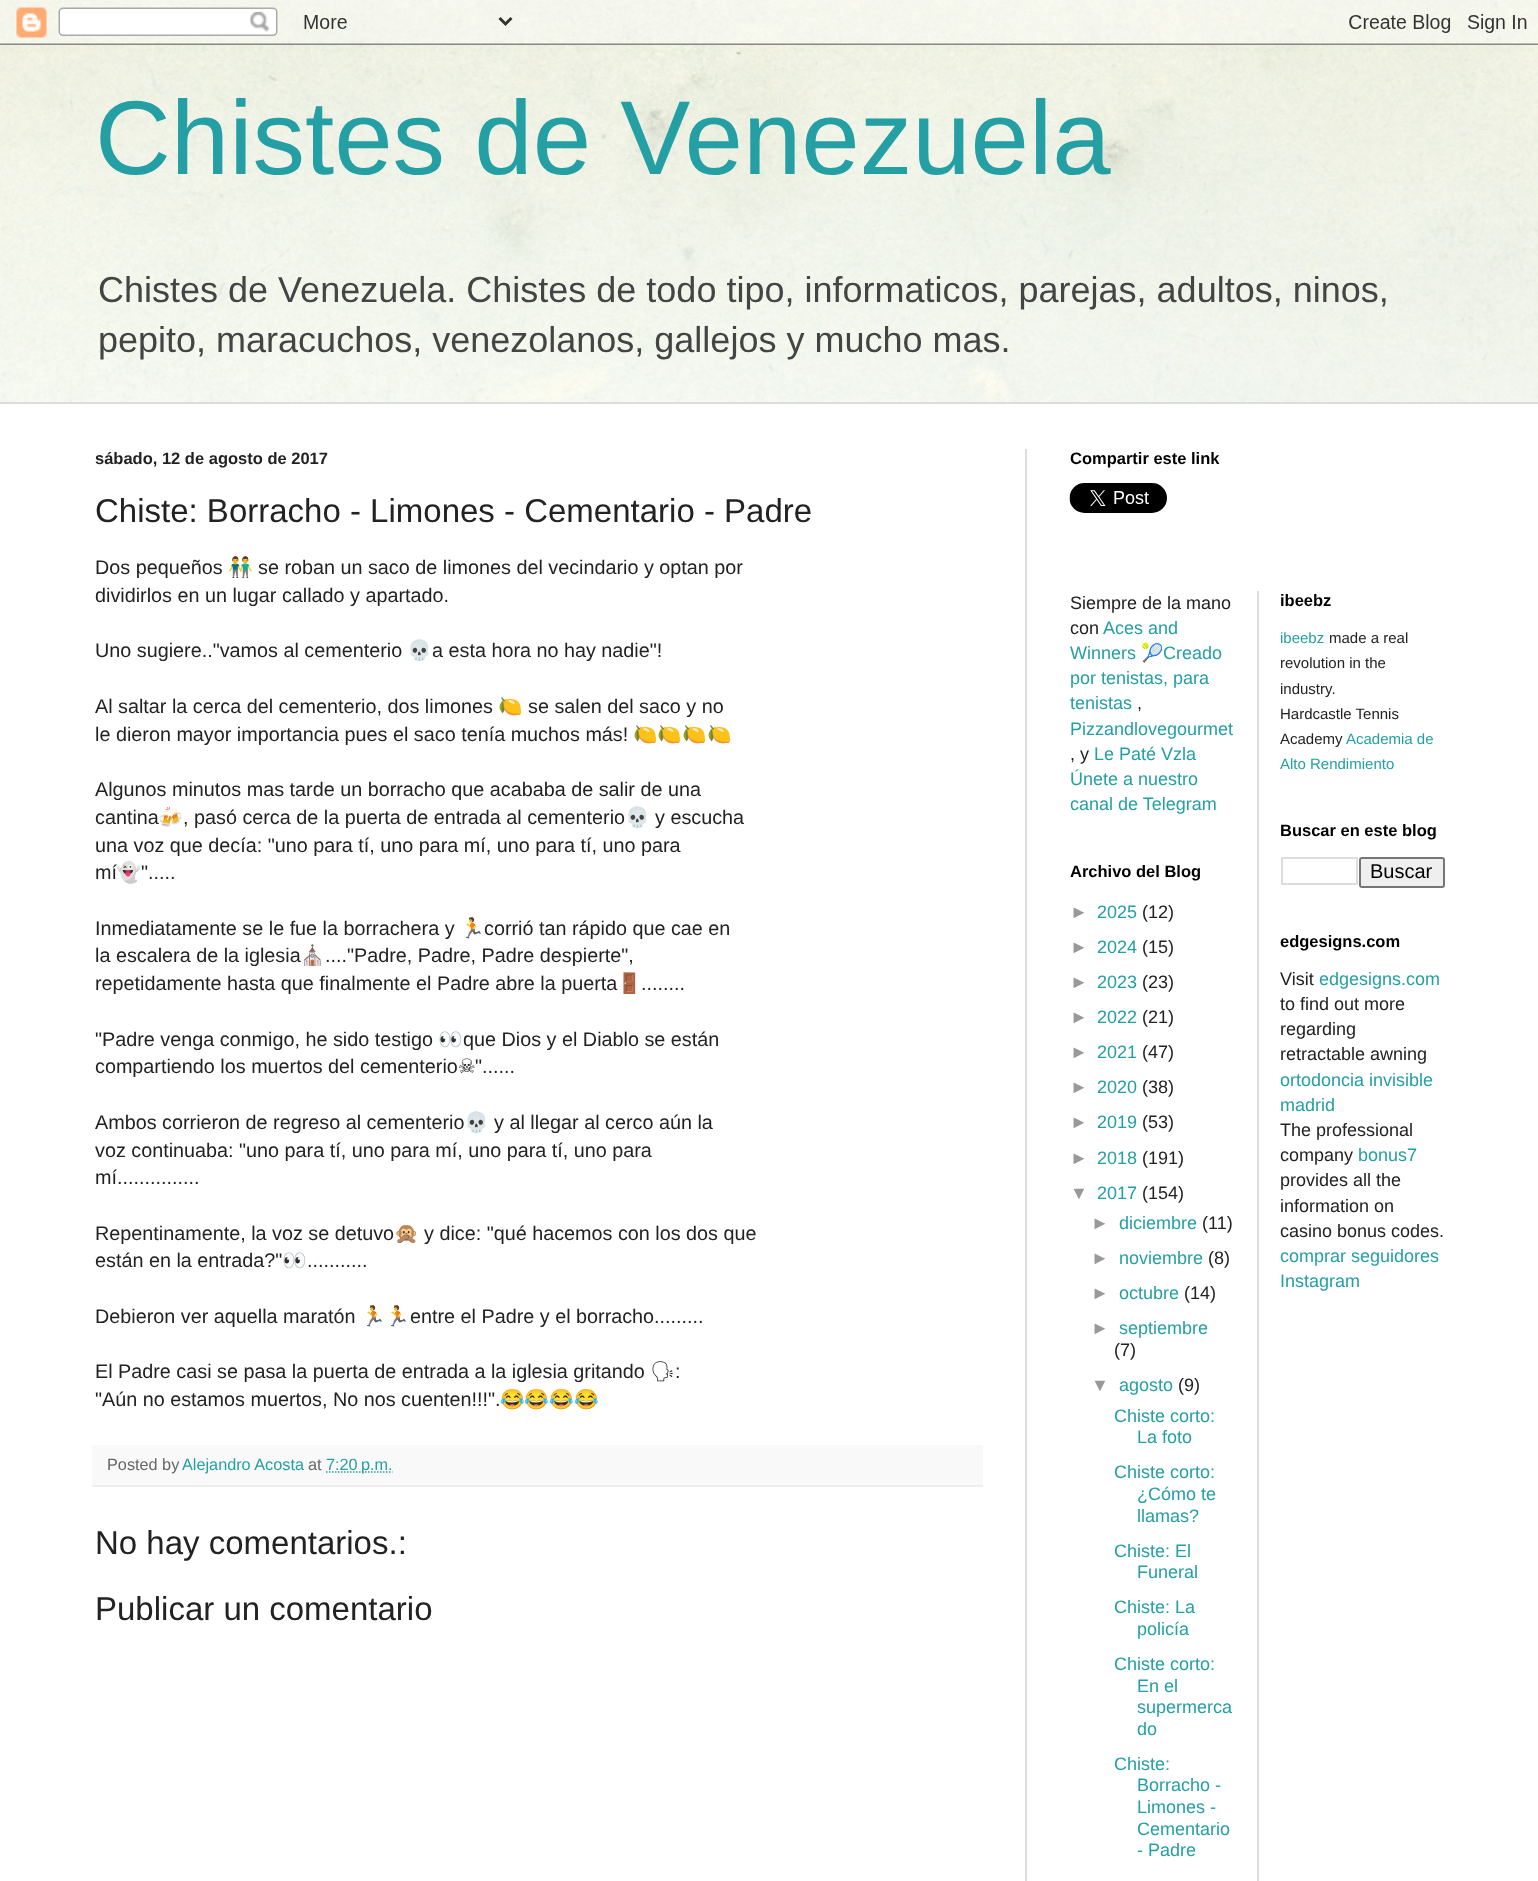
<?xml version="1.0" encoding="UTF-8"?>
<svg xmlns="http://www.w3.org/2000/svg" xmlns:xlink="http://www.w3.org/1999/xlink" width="1538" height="1881">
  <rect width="100%" height="100%" fill="#ffffff" />
  <image x="0" y="0" width="1538" height="402" xlink:href="image1.png" />
  <image x="0" y="0" width="1538" height="45" xlink:href="image2.png" />
  <image x="0" y="52" width="1538" height="350" xlink:href="image3.png" />
  <rect y="402" width="1538" height="2" fill="#dddddd" />
  <rect x="1025" y="449" width="2" height="1432" fill="#dddddd" />
  <rect x="92" y="1445" width="891" height="40" fill="#f9f9f9" />
  <rect x="92" y="1485" width="891" height="2" fill="#eeeeee" />
  <path d="M 326 1472 h 66.5" fill="none" stroke="#249fa3" stroke-width="1.5" stroke-dasharray="1.5 1.5" />
  <image x="1069" y="483" width="98" height="30" xlink:href="image4.png" />
  <rect x="1257" y="591" width="2" height="1290" fill="#dddddd" />
  <rect x="1282" y="858" width="75" height="26" fill="none" stroke="#dddddd" stroke-width="2" />
  <rect x="1360" y="858" width="84" height="29" rx="2" fill="#efefef" stroke="#767676" stroke-width="2" />
  <text x="95" y="174" style="font-family: Liberation Sans; font-size: 105px; fill: #249fa3">Chistes de Venezuela</text>
  <text x="98" y="302" style="font-family: Liberation Sans; font-size: 36px; fill: #444444">Chistes de Venezuela. Chistes de todo tipo, informaticos, parejas, adultos, ninos,</text>
  <text x="98" y="352" style="font-family: Liberation Sans; font-size: 36px; fill: #444444">pepito, maracuchos, venezolanos, gallejos y mucho mas.</text>
  <text x="95" y="464" style="font-family: Liberation Sans; font-size: 16.5px; font-weight: bold; fill: #222222">sábado, 12 de agosto de 2017</text>
  <text x="95" y="522" style="font-family: Liberation Sans; font-size: 33px; fill: #222222">Chiste: Borracho - Limones - Cementario - Padre</text>
  <text x="95" y="574" style="font-family: Liberation Sans; font-size: 19.8px; fill: #222222">Dos pequeños</text>
  <text x="228" y="574" style="font-family: Noto Color Emoji; font-size: 19.8px; fill: #222222">👬</text>
  <text x="258" y="574" style="font-family: Liberation Sans; font-size: 19.8px; fill: #222222">se roban un saco de limones del vecindario y optan por</text>
  <text x="95" y="602" style="font-family: Liberation Sans; font-size: 19.8px; fill: #222222">dividirlos en un lugar callado y apartado.</text>
  <text x="95" y="657" style="font-family: Liberation Sans; font-size: 19.8px; fill: #222222">Uno sugiere.."vamos al cementerio</text>
  <text x="407" y="657" style="font-family: Noto Color Emoji; font-size: 19.8px; fill: #222222">💀</text>
  <text x="432" y="657" style="font-family: Liberation Sans; font-size: 19.8px; fill: #222222">a esta hora no hay nadie"!</text>
  <text x="95" y="713" style="font-family: Liberation Sans; font-size: 19.8px; fill: #222222">Al saltar la cerca del cementerio, dos limones</text>
  <text x="498" y="713" style="font-family: Noto Color Emoji; font-size: 19.8px; fill: #222222">🍋</text>
  <text x="528" y="713" style="font-family: Liberation Sans; font-size: 19.8px; fill: #222222">se salen del saco y no</text>
  <text x="95" y="741" style="font-family: Liberation Sans; font-size: 19.8px; fill: #222222">le dieron mayor importancia pues el saco tenía muchos más!</text>
  <text x="633" y="741" style="font-family: Noto Color Emoji; font-size: 19.8px; fill: #222222">🍋🍋🍋🍋</text>
  <text x="95" y="796" style="font-family: Liberation Sans; font-size: 19.8px; fill: #222222">Algunos minutos mas tarde un borracho que acababa de salir de una</text>
  <text x="95" y="824" style="font-family: Liberation Sans; font-size: 19.8px; fill: #222222">cantina</text>
  <text x="158" y="824" style="font-family: Noto Color Emoji; font-size: 19.8px; fill: #222222">🍻</text>
  <text x="183" y="824" style="font-family: Liberation Sans; font-size: 19.8px; fill: #222222">, pasó cerca de la puerta de entrada al cementerio</text>
  <text x="625" y="824" style="font-family: Noto Color Emoji; font-size: 19.8px; fill: #222222">💀</text>
  <text x="655" y="824" style="font-family: Liberation Sans; font-size: 19.8px; fill: #222222">y escucha</text>
  <text x="95" y="852" style="font-family: Liberation Sans; font-size: 19.8px; fill: #222222">una voz que decía: "uno para tí, uno para mí, uno para tí, uno para</text>
  <text x="95" y="879" style="font-family: Liberation Sans; font-size: 19.8px; fill: #222222">mí</text>
  <text x="116" y="879" style="font-family: Noto Color Emoji; font-size: 19.8px; fill: #222222">👻</text>
  <text x="141" y="879" style="font-family: Liberation Sans; font-size: 19.8px; fill: #222222">".....</text>
  <text x="95" y="935" style="font-family: Liberation Sans; font-size: 19.8px; fill: #222222">Inmediatamente se le fue la borrachera y</text>
  <text x="460" y="935" style="font-family: Noto Color Emoji; font-size: 19.8px; fill: #222222">🏃</text>
  <text x="484" y="935" style="font-family: Liberation Sans; font-size: 19.8px; fill: #222222">corrió tan rápido que cae en</text>
  <text x="95" y="962" style="font-family: Liberation Sans; font-size: 19.8px; fill: #222222">la escalera de la iglesia</text>
  <text x="300" y="962" style="font-family: Noto Color Emoji; font-size: 19.8px; fill: #222222">⛪</text>
  <text x="325" y="962" style="font-family: Liberation Sans; font-size: 19.8px; fill: #222222">...."Padre, Padre, Padre despierte",</text>
  <text x="95" y="990" style="font-family: Liberation Sans; font-size: 19.8px; fill: #222222">repetidamente hasta que finalmente el Padre abre la puerta</text>
  <text x="617" y="990" style="font-family: Noto Color Emoji; font-size: 19.8px; fill: #222222">🚪</text>
  <text x="641" y="990" style="font-family: Liberation Sans; font-size: 19.8px; fill: #222222">........</text>
  <text x="95" y="1046" style="font-family: Liberation Sans; font-size: 19.8px; fill: #222222">"Padre venga conmigo, he sido testigo</text>
  <text x="438" y="1046" style="font-family: Noto Color Emoji; font-size: 19.8px; fill: #222222">👀</text>
  <text x="463" y="1046" style="font-family: Liberation Sans; font-size: 19.8px; fill: #222222">que Dios y el Diablo se están</text>
  <text x="95" y="1073" style="font-family: Liberation Sans; font-size: 19.8px; fill: #222222">compartiendo los muertos del cementerio</text>
  <text x="458" y="1073" style="font-family: DejaVu Sans; font-size: 19.8px; fill: #222222">☠</text>
  <text x="475" y="1073" style="font-family: Liberation Sans; font-size: 19.8px; fill: #222222">"......</text>
  <text x="95" y="1129" style="font-family: Liberation Sans; font-size: 19.8px; fill: #222222">Ambos corrieron de regreso al cementerio</text>
  <text x="464" y="1129" style="font-family: Noto Color Emoji; font-size: 19.8px; fill: #222222">💀</text>
  <text x="494" y="1129" style="font-family: Liberation Sans; font-size: 19.8px; fill: #222222">y al llegar al cerco aún la</text>
  <text x="95" y="1157" style="font-family: Liberation Sans; font-size: 19.8px; fill: #222222">voz continuaba: "uno para tí, uno para mí, uno para tí, uno para</text>
  <text x="95" y="1184" style="font-family: Liberation Sans; font-size: 19.8px; fill: #222222">mí...............</text>
  <text x="95" y="1240" style="font-family: Liberation Sans; font-size: 19.8px; fill: #222222">Repentinamente, la voz se detuvo</text>
  <text x="394" y="1240" style="font-family: Noto Color Emoji; font-size: 19.8px; fill: #222222">🙊</text>
  <text x="424" y="1240" style="font-family: Liberation Sans; font-size: 19.8px; fill: #222222">y dice: "qué hacemos con los dos que</text>
  <text x="95" y="1267" style="font-family: Liberation Sans; font-size: 19.8px; fill: #222222">están en la entrada?"</text>
  <text x="282" y="1267" style="font-family: Noto Color Emoji; font-size: 19.8px; fill: #222222">👀</text>
  <text x="307" y="1267" style="font-family: Liberation Sans; font-size: 19.8px; fill: #222222">...........</text>
  <text x="95" y="1323" style="font-family: Liberation Sans; font-size: 19.8px; fill: #222222">Debieron ver aquella maratón</text>
  <text x="361" y="1323" style="font-family: Noto Color Emoji; font-size: 19.8px; fill: #222222">🏃🏃</text>
  <text x="410" y="1323" style="font-family: Liberation Sans; font-size: 19.8px; fill: #222222">entre el Padre y el borracho.........</text>
  <text x="95" y="1378" style="font-family: Liberation Sans; font-size: 19.8px; fill: #222222">El Padre casi se pasa la puerta de entrada a la iglesia gritando</text>
  <text x="650" y="1378" style="font-family: Noto Emoji; font-size: 19.8px; fill: #222222">🗣</text>
  <text x="675" y="1378" style="font-family: Liberation Sans; font-size: 19.8px; fill: #222222">:</text>
  <text x="95" y="1406" style="font-family: Liberation Sans; font-size: 19.8px; fill: #222222">"Aún no estamos muertos, No nos cuenten!!!".</text>
  <text x="500" y="1406" style="font-family: Noto Color Emoji; font-size: 19.8px; fill: #222222">😂😂😂😂</text>
  <text x="107" y="1470" style="font-family: Liberation Sans; font-size: 16.25px; fill: #666666">Posted by</text>
  <text x="182" y="1470" style="font-family: Liberation Sans; font-size: 16.25px; fill: #249fa3">Alejandro Acosta</text>
  <text x="308" y="1470" style="font-family: Liberation Sans; font-size: 16.25px; fill: #666666">at</text>
  <text x="326" y="1470" style="font-family: Liberation Sans; font-size: 16.25px; fill: #249fa3">7:20 p.m.</text>
  <text x="95" y="1554" style="font-family: Liberation Sans; font-size: 33px; fill: #222222">No hay comentarios.:</text>
  <text x="95" y="1620" style="font-family: Liberation Sans; font-size: 33px; fill: #222222">Publicar un comentario</text>
  <text x="1070" y="464" style="font-family: Liberation Sans; font-size: 16.5px; font-weight: bold; fill: #000000">Compartir este link</text>
  <text x="1070" y="609" style="font-family: Liberation Sans; font-size: 18px; fill: #222222">Siempre de la mano</text>
  <text x="1070" y="634" style="font-family: Liberation Sans; font-size: 18px; fill: #222222">con</text>
  <text x="1103" y="634" style="font-family: Liberation Sans; font-size: 18px; fill: #249fa3">Aces and</text>
  <text x="1070" y="659" style="font-family: Liberation Sans; font-size: 18px; fill: #249fa3">Winners</text>
  <text x="1141" y="659" style="font-family: Noto Color Emoji; font-size: 18px; fill: #249fa3">🎾</text>
  <text x="1163" y="659" style="font-family: Liberation Sans; font-size: 18px; fill: #249fa3">Creado</text>
  <text x="1070" y="684" style="font-family: Liberation Sans; font-size: 18px; fill: #249fa3">por tenistas, para</text>
  <text x="1070" y="709" style="font-family: Liberation Sans; font-size: 18px; fill: #249fa3">tenistas</text>
  <text x="1137" y="709" style="font-family: Liberation Sans; font-size: 18px; fill: #222222">,</text>
  <text x="1070" y="735" style="font-family: Liberation Sans; font-size: 18px; fill: #249fa3">Pizzandlovegourmet</text>
  <text x="1070" y="760" style="font-family: Liberation Sans; font-size: 18px; fill: #222222">, y</text>
  <text x="1094" y="760" style="font-family: Liberation Sans; font-size: 18px; fill: #249fa3">Le Paté Vzla</text>
  <text x="1070" y="785" style="font-family: Liberation Sans; font-size: 18px; fill: #249fa3">Únete a nuestro</text>
  <text x="1070" y="810" style="font-family: Liberation Sans; font-size: 18px; fill: #249fa3">canal de Telegram</text>
  <text x="1070" y="877" style="font-family: Liberation Sans; font-size: 16.5px; font-weight: bold; fill: #000000">Archivo del Blog</text>
  <text x="1070" y="918" style="font-family: Liberation Sans; font-size: 18px; fill: #999999">►</text>
  <text x="1097" y="918" style="font-family: Liberation Sans; font-size: 18px; fill: #249fa3">2025</text>
  <text x="1142" y="918" style="font-family: Liberation Sans; font-size: 18px; fill: #222222">(12)</text>
  <text x="1070" y="953" style="font-family: Liberation Sans; font-size: 18px; fill: #999999">►</text>
  <text x="1097" y="953" style="font-family: Liberation Sans; font-size: 18px; fill: #249fa3">2024</text>
  <text x="1142" y="953" style="font-family: Liberation Sans; font-size: 18px; fill: #222222">(15)</text>
  <text x="1070" y="988" style="font-family: Liberation Sans; font-size: 18px; fill: #999999">►</text>
  <text x="1097" y="988" style="font-family: Liberation Sans; font-size: 18px; fill: #249fa3">2023</text>
  <text x="1142" y="988" style="font-family: Liberation Sans; font-size: 18px; fill: #222222">(23)</text>
  <text x="1070" y="1023" style="font-family: Liberation Sans; font-size: 18px; fill: #999999">►</text>
  <text x="1097" y="1023" style="font-family: Liberation Sans; font-size: 18px; fill: #249fa3">2022</text>
  <text x="1142" y="1023" style="font-family: Liberation Sans; font-size: 18px; fill: #222222">(21)</text>
  <text x="1070" y="1058" style="font-family: Liberation Sans; font-size: 18px; fill: #999999">►</text>
  <text x="1097" y="1058" style="font-family: Liberation Sans; font-size: 18px; fill: #249fa3">2021</text>
  <text x="1142" y="1058" style="font-family: Liberation Sans; font-size: 18px; fill: #222222">(47)</text>
  <text x="1070" y="1093" style="font-family: Liberation Sans; font-size: 18px; fill: #999999">►</text>
  <text x="1097" y="1093" style="font-family: Liberation Sans; font-size: 18px; fill: #249fa3">2020</text>
  <text x="1142" y="1093" style="font-family: Liberation Sans; font-size: 18px; fill: #222222">(38)</text>
  <text x="1070" y="1128" style="font-family: Liberation Sans; font-size: 18px; fill: #999999">►</text>
  <text x="1097" y="1128" style="font-family: Liberation Sans; font-size: 18px; fill: #249fa3">2019</text>
  <text x="1142" y="1128" style="font-family: Liberation Sans; font-size: 18px; fill: #222222">(53)</text>
  <text x="1070" y="1164" style="font-family: Liberation Sans; font-size: 18px; fill: #999999">►</text>
  <text x="1097" y="1164" style="font-family: Liberation Sans; font-size: 18px; fill: #249fa3">2018</text>
  <text x="1142" y="1164" style="font-family: Liberation Sans; font-size: 18px; fill: #222222">(191)</text>
  <text x="1070" y="1199" style="font-family: Liberation Sans; font-size: 18px; fill: #999999">▼</text>
  <text x="1097" y="1199" style="font-family: Liberation Sans; font-size: 18px; fill: #249fa3">2017</text>
  <text x="1142" y="1199" style="font-family: Liberation Sans; font-size: 18px; fill: #222222">(154)</text>
  <text x="1091" y="1229" style="font-family: Liberation Sans; font-size: 18px; fill: #999999">►</text>
  <text x="1119" y="1229" style="font-family: Liberation Sans; font-size: 18px; fill: #249fa3">diciembre</text>
  <text x="1202" y="1229" style="font-family: Liberation Sans; font-size: 18px; fill: #222222">(11)</text>
  <text x="1091" y="1264" style="font-family: Liberation Sans; font-size: 18px; fill: #999999">►</text>
  <text x="1119" y="1264" style="font-family: Liberation Sans; font-size: 18px; fill: #249fa3">noviembre</text>
  <text x="1208" y="1264" style="font-family: Liberation Sans; font-size: 18px; fill: #222222">(8)</text>
  <text x="1091" y="1299" style="font-family: Liberation Sans; font-size: 18px; fill: #999999">►</text>
  <text x="1119" y="1299" style="font-family: Liberation Sans; font-size: 18px; fill: #249fa3">octubre</text>
  <text x="1184" y="1299" style="font-family: Liberation Sans; font-size: 18px; fill: #222222">(14)</text>
  <text x="1091" y="1334" style="font-family: Liberation Sans; font-size: 18px; fill: #999999">►</text>
  <text x="1119" y="1334" style="font-family: Liberation Sans; font-size: 18px; fill: #249fa3">septiembre</text>
  <text x="1114" y="1356" style="font-family: Liberation Sans; font-size: 18px; fill: #222222">(7)</text>
  <text x="1091" y="1391" style="font-family: Liberation Sans; font-size: 18px; fill: #999999">▼</text>
  <text x="1119" y="1391" style="font-family: Liberation Sans; font-size: 18px; fill: #249fa3">agosto</text>
  <text x="1178" y="1391" style="font-family: Liberation Sans; font-size: 18px; fill: #222222">(9)</text>
  <text x="1114" y="1422" style="font-family: Liberation Sans; font-size: 18px; fill: #249fa3">Chiste corto:</text>
  <text x="1137" y="1443" style="font-family: Liberation Sans; font-size: 18px; fill: #249fa3">La foto</text>
  <text x="1114" y="1478" style="font-family: Liberation Sans; font-size: 18px; fill: #249fa3">Chiste corto:</text>
  <text x="1137" y="1500" style="font-family: Liberation Sans; font-size: 18px; fill: #249fa3">¿Cómo te</text>
  <text x="1137" y="1522" style="font-family: Liberation Sans; font-size: 18px; fill: #249fa3">llamas?</text>
  <text x="1114" y="1557" style="font-family: Liberation Sans; font-size: 18px; fill: #249fa3">Chiste: El</text>
  <text x="1137" y="1578" style="font-family: Liberation Sans; font-size: 18px; fill: #249fa3">Funeral</text>
  <text x="1114" y="1613" style="font-family: Liberation Sans; font-size: 18px; fill: #249fa3">Chiste: La</text>
  <text x="1137" y="1635" style="font-family: Liberation Sans; font-size: 18px; fill: #249fa3">policía</text>
  <text x="1114" y="1670" style="font-family: Liberation Sans; font-size: 18px; fill: #249fa3">Chiste corto:</text>
  <text x="1137" y="1692" style="font-family: Liberation Sans; font-size: 18px; fill: #249fa3">En el</text>
  <text x="1137" y="1713" style="font-family: Liberation Sans; font-size: 18px; fill: #249fa3">supermerca</text>
  <text x="1137" y="1735" style="font-family: Liberation Sans; font-size: 18px; fill: #249fa3">do</text>
  <text x="1114" y="1770" style="font-family: Liberation Sans; font-size: 18px; fill: #249fa3">Chiste:</text>
  <text x="1137" y="1791" style="font-family: Liberation Sans; font-size: 18px; fill: #249fa3">Borracho -</text>
  <text x="1137" y="1813" style="font-family: Liberation Sans; font-size: 18px; fill: #249fa3">Limones -</text>
  <text x="1137" y="1835" style="font-family: Liberation Sans; font-size: 18px; fill: #249fa3">Cementario</text>
  <text x="1137" y="1856" style="font-family: Liberation Sans; font-size: 18px; fill: #249fa3">- Padre</text>
  <text x="1280" y="606" style="font-family: Liberation Sans; font-size: 16.5px; font-weight: bold; fill: #000000">ibeebz</text>
  <text x="1280" y="643" style="font-family: Liberation Sans; font-size: 15px; fill: #249fa3">ibeebz</text>
  <text x="1329" y="643" style="font-family: Liberation Sans; font-size: 15px; fill: #222222">made a real</text>
  <text x="1280" y="668" style="font-family: Liberation Sans; font-size: 15px; fill: #222222">revolution in the</text>
  <text x="1280" y="694" style="font-family: Liberation Sans; font-size: 15px; fill: #222222">industry.</text>
  <text x="1280" y="719" style="font-family: Liberation Sans; font-size: 15px; fill: #222222">Hardcastle Tennis</text>
  <text x="1280" y="744" style="font-family: Liberation Sans; font-size: 15px; fill: #222222">Academy</text>
  <text x="1346" y="744" style="font-family: Liberation Sans; font-size: 15px; fill: #249fa3">Academia de</text>
  <text x="1280" y="769" style="font-family: Liberation Sans; font-size: 15px; fill: #249fa3">Alto Rendimiento</text>
  <text x="1280" y="836" style="font-family: Liberation Sans; font-size: 16.5px; font-weight: bold; fill: #000000">Buscar en este blog</text>
  <text x="1370" y="878" style="font-family: Liberation Sans; font-size: 20px; fill: #000000">Buscar</text>
  <text x="1280" y="947" style="font-family: Liberation Sans; font-size: 16.5px; font-weight: bold; fill: #000000">edgesigns.com</text>
  <text x="1280" y="985" style="font-family: Liberation Sans; font-size: 18px; fill: #222222">Visit</text>
  <text x="1319" y="985" style="font-family: Liberation Sans; font-size: 18px; fill: #249fa3">edgesigns.com</text>
  <text x="1280" y="1010" style="font-family: Liberation Sans; font-size: 18px; fill: #222222">to find out more</text>
  <text x="1280" y="1035" style="font-family: Liberation Sans; font-size: 18px; fill: #222222">regarding</text>
  <text x="1280" y="1060" style="font-family: Liberation Sans; font-size: 18px; fill: #222222">retractable awning</text>
  <text x="1280" y="1086" style="font-family: Liberation Sans; font-size: 18px; fill: #249fa3">ortodoncia invisible</text>
  <text x="1280" y="1111" style="font-family: Liberation Sans; font-size: 18px; fill: #249fa3">madrid</text>
  <text x="1280" y="1136" style="font-family: Liberation Sans; font-size: 18px; fill: #222222">The professional</text>
  <text x="1280" y="1161" style="font-family: Liberation Sans; font-size: 18px; fill: #222222">company</text>
  <text x="1358" y="1161" style="font-family: Liberation Sans; font-size: 18px; fill: #249fa3">bonus7</text>
  <text x="1280" y="1186" style="font-family: Liberation Sans; font-size: 18px; fill: #222222">provides all the</text>
  <text x="1280" y="1212" style="font-family: Liberation Sans; font-size: 18px; fill: #222222">information on</text>
  <text x="1280" y="1237" style="font-family: Liberation Sans; font-size: 18px; fill: #222222">casino bonus codes.</text>
  <text x="1280" y="1262" style="font-family: Liberation Sans; font-size: 18px; fill: #249fa3">comprar seguidores</text>
  <text x="1280" y="1287" style="font-family: Liberation Sans; font-size: 18px; fill: #249fa3">Instagram</text>
</svg>
